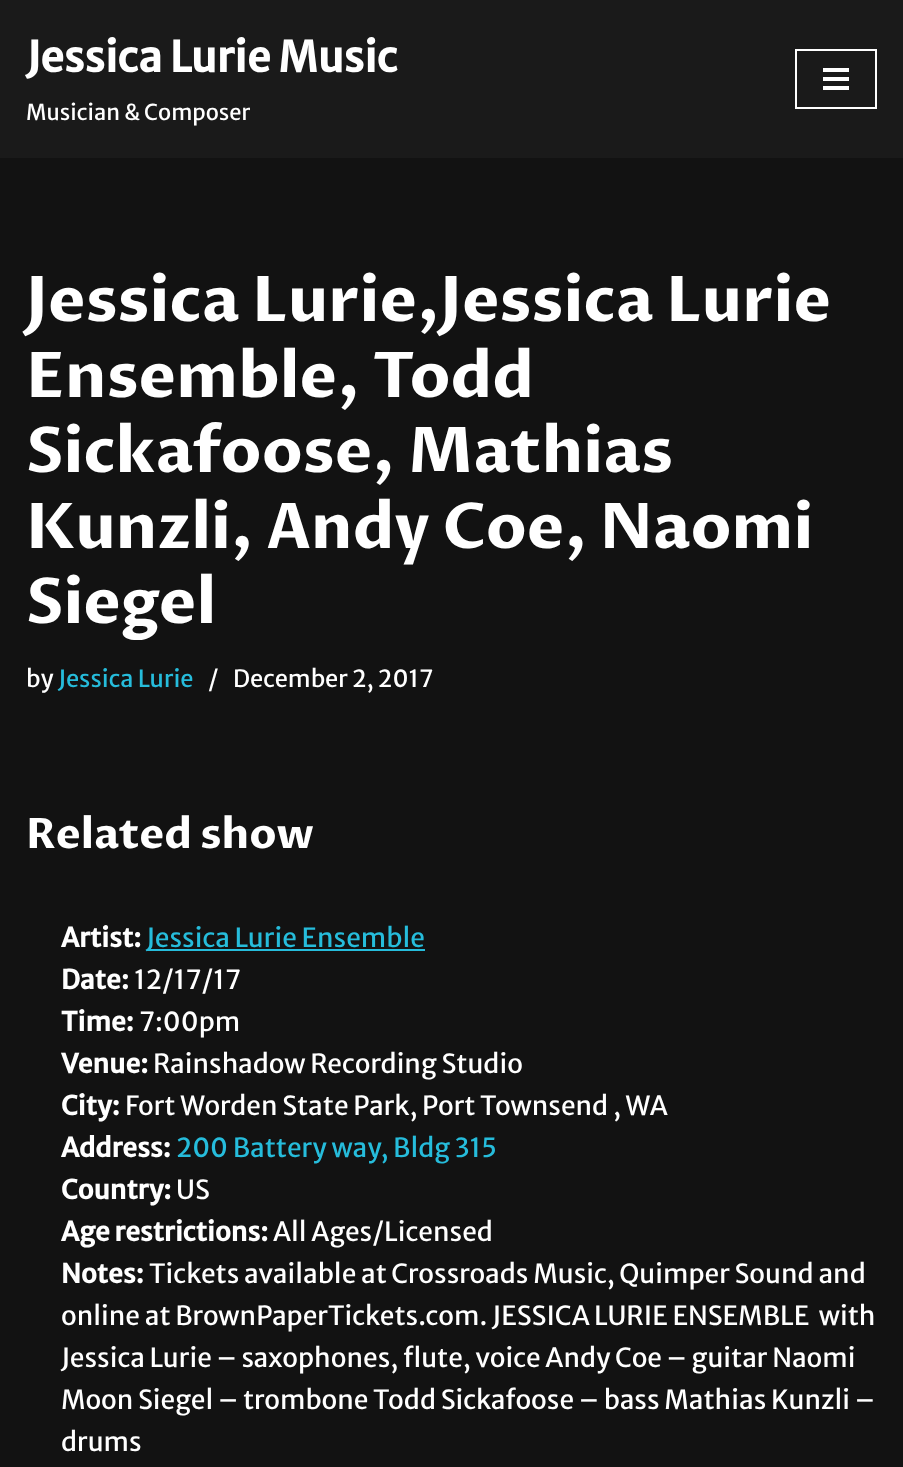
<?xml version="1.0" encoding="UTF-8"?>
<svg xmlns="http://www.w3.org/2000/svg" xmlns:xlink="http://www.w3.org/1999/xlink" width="903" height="1467">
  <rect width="100%" height="100%" fill="#121212" />
  <rect width="903" height="158" fill="#1a1a1a" />
  <rect x="796" y="50" width="80" height="58" fill="none" stroke="#ffffff" stroke-width="2" />
  <rect x="823" y="68" width="26" height="4" fill="#ffffff" />
  <rect x="823" y="77" width="26" height="4" fill="#ffffff" />
  <rect x="823" y="86" width="26" height="4" fill="#ffffff" />
  <rect x="147" y="949" width="278" height="2" fill="#26bcdb" />
  <text x="26" y="72" style="font-family: Merriweather Sans; font-size: 42px; font-weight: bold; fill: #ffffff">Jessica Lurie Music</text>
  <text x="26" y="120" style="font-family: Merriweather Sans; font-size: 21.9px; fill: #ffffff">Musician &amp; Composer</text>
  <text x="26" y="321" style="font-family: Proza Libre; font-size: 63px; font-weight: bold; fill: #ffffff">Jessica Lurie,Jessica Lurie</text>
  <text x="26" y="397" style="font-family: Proza Libre; font-size: 63px; font-weight: bold; fill: #ffffff">Ensemble, Todd</text>
  <text x="26" y="472" style="font-family: Proza Libre; font-size: 63px; font-weight: bold; fill: #ffffff">Sickafoose, Mathias</text>
  <text x="26" y="548" style="font-family: Proza Libre; font-size: 63px; font-weight: bold; fill: #ffffff">Kunzli, Andy Coe, Naomi</text>
  <text x="26" y="623" style="font-family: Proza Libre; font-size: 63px; font-weight: bold; fill: #ffffff">Siegel</text>
  <text x="26" y="687" style="font-family: Merriweather Sans; font-size: 23.6px; fill: #ffffff">by</text>
  <text x="58" y="687" style="font-family: Merriweather Sans; font-size: 23.6px; fill: #26bcdb">Jessica Lurie</text>
  <text x="208" y="687" style="font-family: Merriweather Sans; font-size: 23.6px; fill: #ffffff">/</text>
  <text x="233" y="687" style="font-family: Merriweather Sans; font-size: 23.6px; fill: #ffffff">December 2, 2017</text>
  <text x="26" y="848" style="font-family: Proza Libre; font-size: 42px; font-weight: bold; fill: #ffffff">Related show</text>
  <text x="61" y="947" style="font-family: Merriweather Sans; font-size: 26.25px; font-weight: bold; fill: #ffffff">Artist:</text>
  <text x="146" y="947" style="font-family: Merriweather Sans; font-size: 26.25px; fill: #26bcdb">Jessica Lurie Ensemble</text>
  <text x="61" y="989" style="font-family: Merriweather Sans; font-size: 26.25px; font-weight: bold; fill: #ffffff">Date:</text>
  <text x="134" y="989" style="font-family: Merriweather Sans; font-size: 26.25px; fill: #ffffff">12/17/17</text>
  <text x="61" y="1031" style="font-family: Merriweather Sans; font-size: 26.25px; font-weight: bold; fill: #ffffff">Time:</text>
  <text x="139" y="1031" style="font-family: Merriweather Sans; font-size: 26.25px; fill: #ffffff">7:00pm</text>
  <text x="61" y="1073" style="font-family: Merriweather Sans; font-size: 26.25px; font-weight: bold; fill: #ffffff">Venue:</text>
  <text x="153" y="1073" style="font-family: Merriweather Sans; font-size: 26.25px; fill: #ffffff">Rainshadow Recording Studio</text>
  <text x="61" y="1115" style="font-family: Merriweather Sans; font-size: 26.25px; font-weight: bold; fill: #ffffff">City:</text>
  <text x="125" y="1115" style="font-family: Merriweather Sans; font-size: 26.25px; fill: #ffffff">Fort Worden State Park, Port Townsend , WA</text>
  <text x="61" y="1157" style="font-family: Merriweather Sans; font-size: 26.25px; font-weight: bold; fill: #ffffff">Address:</text>
  <text x="176" y="1157" style="font-family: Merriweather Sans; font-size: 26.25px; fill: #26bcdb">200 Battery way, Bldg 315</text>
  <text x="61" y="1199" style="font-family: Merriweather Sans; font-size: 26.25px; font-weight: bold; fill: #ffffff">Country:</text>
  <text x="176" y="1199" style="font-family: Merriweather Sans; font-size: 26.25px; fill: #ffffff">US</text>
  <text x="61" y="1241" style="font-family: Merriweather Sans; font-size: 26.25px; font-weight: bold; fill: #ffffff">Age restrictions:</text>
  <text x="273" y="1241" style="font-family: Merriweather Sans; font-size: 26.25px; fill: #ffffff">All Ages/Licensed</text>
  <text x="61" y="1283" style="font-family: Merriweather Sans; font-size: 26.25px; font-weight: bold; fill: #ffffff">Notes:</text>
  <text x="149" y="1283" style="font-family: Merriweather Sans; font-size: 26.25px; fill: #ffffff">Tickets available at Crossroads Music, Quimper Sound and</text>
  <text x="61" y="1325" style="font-family: Merriweather Sans; font-size: 26.25px; fill: #ffffff" xml:space="preserve">online at BrownPaperTickets.com. JESSICA LURIE ENSEMBLE  with</text>
  <text x="61" y="1367" style="font-family: Merriweather Sans; font-size: 26.25px; fill: #ffffff">Jessica Lurie – saxophones, flute, voice Andy Coe – guitar Naomi</text>
  <text x="61" y="1409" style="font-family: Merriweather Sans; font-size: 26.25px; fill: #ffffff">Moon Siegel – trombone Todd Sickafoose – bass Mathias Kunzli –</text>
  <text x="61" y="1451" style="font-family: Merriweather Sans; font-size: 26.25px; fill: #ffffff">drums</text>
</svg>
